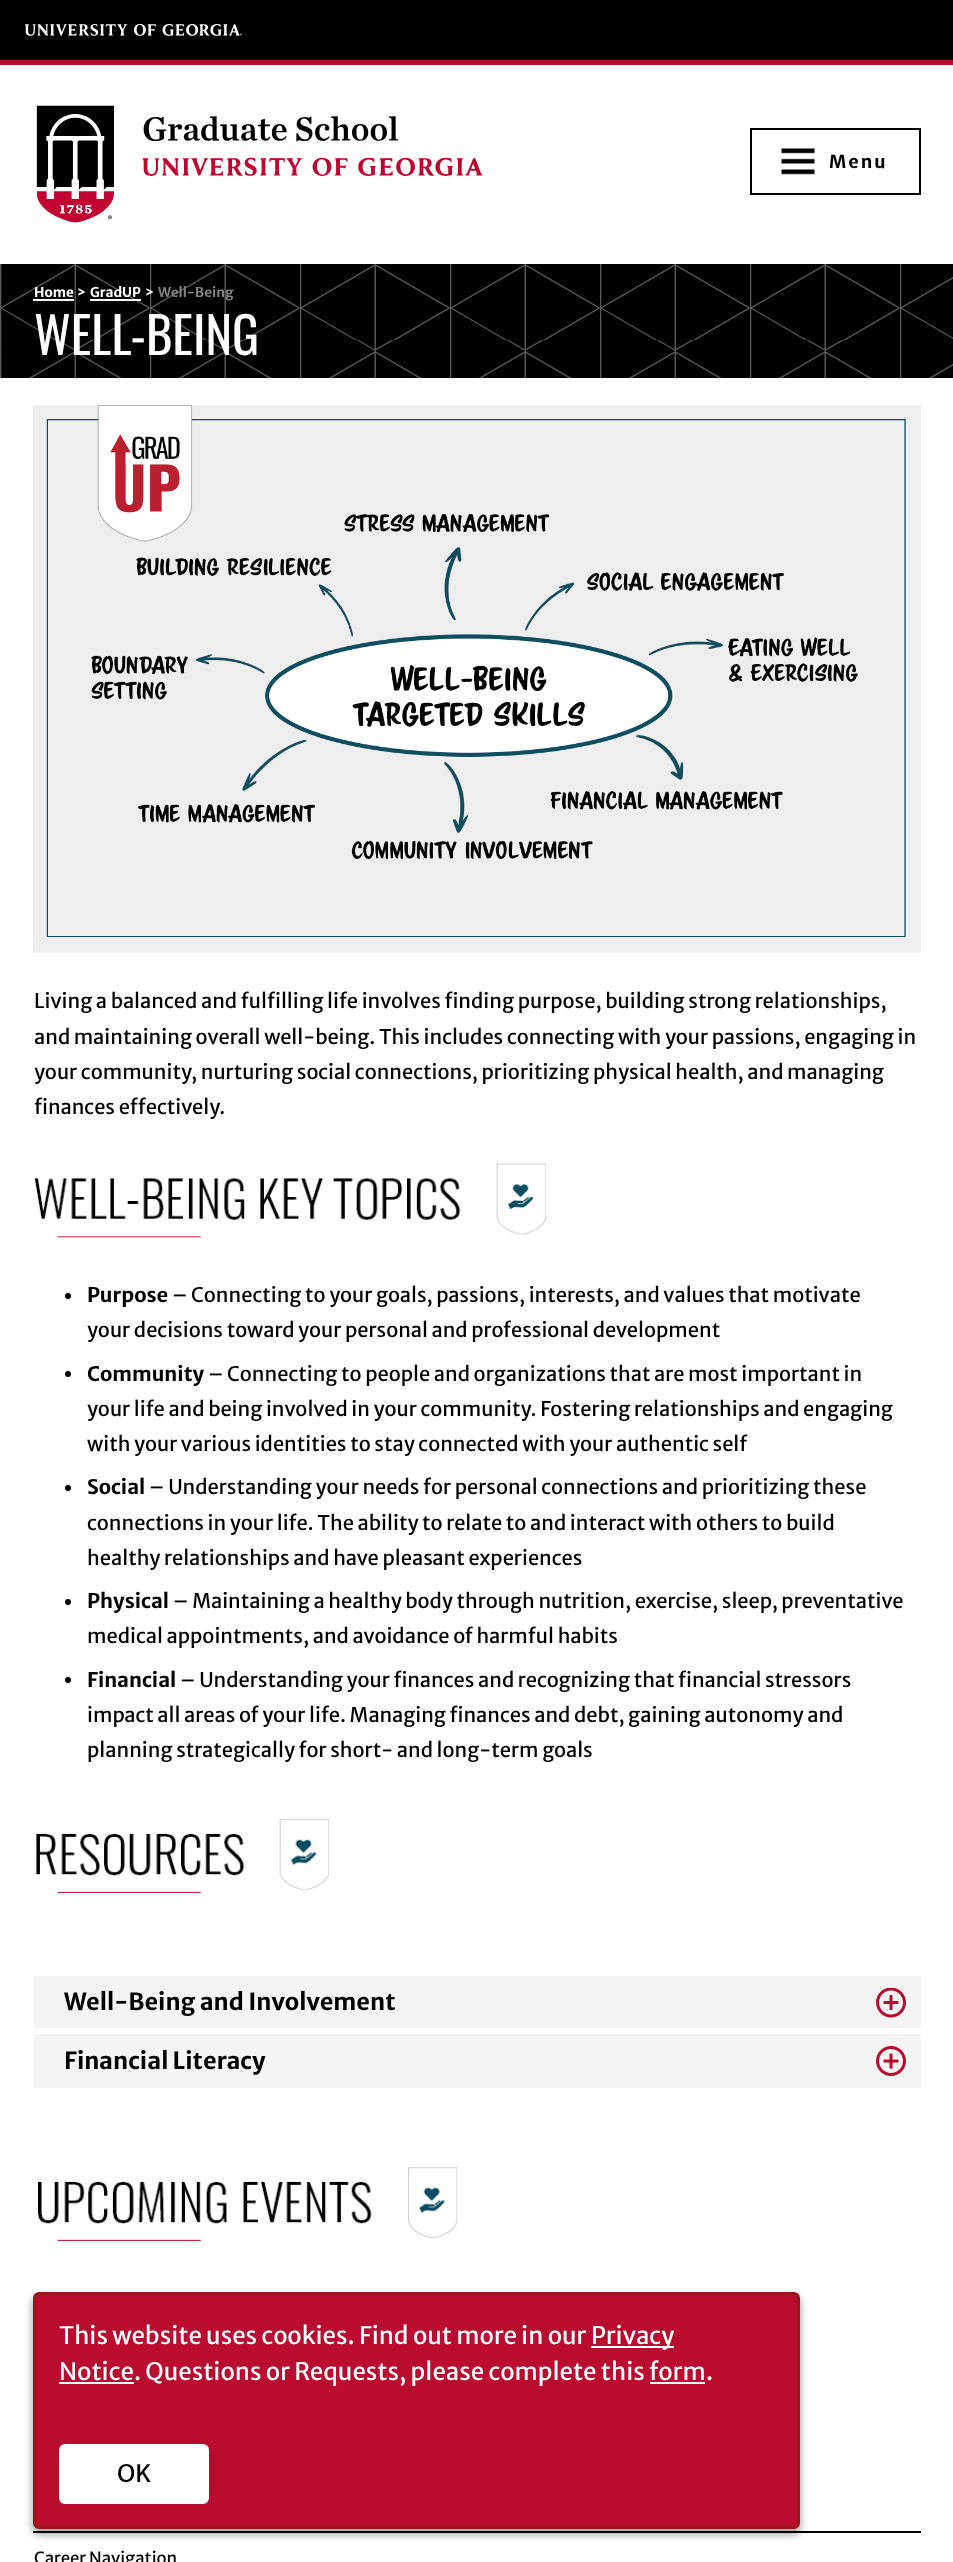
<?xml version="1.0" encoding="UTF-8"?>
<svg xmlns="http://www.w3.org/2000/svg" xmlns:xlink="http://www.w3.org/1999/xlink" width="953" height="2562">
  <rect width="100%" height="100%" fill="#ffffff" />
  <rect width="953" height="60" fill="#000000" />
  <rect y="60" width="953" height="5" fill="#ba0c2f" />
  <image x="25" y="24" width="218" height="12" xlink:href="image1.png" />
  <image x="36" y="105" width="447" height="118" xlink:href="image2.png" />
  <rect x="751" y="129" width="169" height="65" fill="none" stroke="#000000" stroke-width="2" />
  <image x="781" y="148" width="34" height="27" xlink:href="image3.png" />
  <rect x="1" y="264" width="952" height="114" fill="#000000" />
  <image x="0" y="264" width="953" height="114" xlink:href="image4.png" />
  <rect x="33" y="299" width="41" height="2" fill="#ffffff" />
  <rect x="90" y="299" width="51" height="2" fill="#ffffff" />
  <image x="33" y="405" width="888" height="548" xlink:href="image5.png" />
  <image x="34" y="1163" width="512" height="75" xlink:href="image6.png" />
  <circle cx="68" cy="1296" r="3" fill="#000000" />
  <circle cx="68" cy="1374" r="3" fill="#000000" />
  <circle cx="68" cy="1488" r="3" fill="#000000" />
  <circle cx="68" cy="1602" r="3" fill="#000000" />
  <circle cx="68" cy="1680" r="3" fill="#000000" />
  <image x="36" y="1819" width="293" height="74" xlink:href="image7.png" />
  <rect x="33" y="1976" width="888" height="52" fill="#f4f4f4" />
  <image x="876" y="1988" width="30" height="30" xlink:href="image8.png" />
  <rect x="33" y="2034" width="888" height="54" fill="#f4f4f4" />
  <image x="876" y="2046" width="30" height="30" xlink:href="image9.png" />
  <image x="38" y="2167" width="420" height="74" xlink:href="image10.png" />
  <rect x="33" y="2531" width="888" height="2" fill="#000000" />
  <rect x="33" y="2297" width="767" height="237" rx="6" fill="#000000" fill-opacity="0.25" filter="blur(4.5px)" />
  <rect x="33" y="2297" width="767" height="237" rx="6" fill="#000000" fill-opacity="0.18" filter="blur(4.5px)" />
  <rect x="34.5" y="2293.5" width="764" height="234" rx="4.5" fill="#ba0c2f" stroke="#991718" stroke-width="3" />
  <rect x="591" y="2346" width="83" height="2" fill="#fefefe" />
  <rect x="59" y="2382" width="75" height="2" fill="#fefefe" />
  <rect x="650" y="2382" width="55" height="2" fill="#fefefe" />
  <rect x="59" y="2444" width="150" height="60" rx="6" fill="#ffffff" />
  <text x="829" y="168" style="font-family: Merriweather Sans; font-size: 18px; font-weight: bold; letter-spacing: 2px; fill: #000000">Menu</text>
  <text x="34" y="297" style="font-family: Merriweather Sans; font-size: 13.5px; font-weight: bold; fill: #ffffff">Home</text>
  <text x="77" y="297" style="font-family: Merriweather Sans; font-size: 13.5px; font-weight: bold; fill: #ffffff">&gt;</text>
  <text x="90" y="297" style="font-family: Merriweather Sans; font-size: 13.5px; font-weight: bold; fill: #ffffff">GradUP</text>
  <text x="145" y="297" style="font-family: Merriweather Sans; font-size: 13.5px; font-weight: bold; fill: #ffffff">&gt;</text>
  <text x="158" y="297" style="font-family: Merriweather Sans; font-size: 13.5px; font-weight: bold; fill: #828282">Well-Being</text>
  <text x="34" y="355" style="font-family: Oswald; font-size: 50.5px; fill: #ffffff">WELL-BEING</text>
  <text x="34" y="1008" style="font-family: Merriweather Sans; font-size: 20.1px; fill: #000000">Living a balanced and fulfilling life involves finding purpose, building strong relationships,</text>
  <text x="34" y="1044" style="font-family: Merriweather Sans; font-size: 20.1px; fill: #000000">and maintaining overall well-being. This includes connecting with your passions, engaging in</text>
  <text x="34" y="1079" style="font-family: Merriweather Sans; font-size: 20.1px; fill: #000000">your community, nurturing social connections, prioritizing physical health, and managing</text>
  <text x="34" y="1114" style="font-family: Merriweather Sans; font-size: 20.1px; fill: #000000">finances effectively.</text>
  <text x="87" y="1302" style="font-family: Merriweather Sans; font-size: 20.1px; font-weight: bold; fill: #000000">Purpose</text>
  <text x="172" y="1302" style="font-family: Merriweather Sans; font-size: 20.1px; fill: #000000">– Connecting to your goals, passions, interests, and values that motivate</text>
  <text x="87" y="1337" style="font-family: Merriweather Sans; font-size: 20.1px; fill: #000000">your decisions toward your personal and professional development</text>
  <text x="87" y="1381" style="font-family: Merriweather Sans; font-size: 20.1px; font-weight: bold; fill: #000000">Community</text>
  <text x="208" y="1381" style="font-family: Merriweather Sans; font-size: 20.1px; fill: #000000">– Connecting to people and organizations that are most important in</text>
  <text x="87" y="1416" style="font-family: Merriweather Sans; font-size: 20.1px; fill: #000000">your life and being involved in your community. Fostering relationships and engaging</text>
  <text x="87" y="1451" style="font-family: Merriweather Sans; font-size: 20.1px; fill: #000000">with your various identities to stay connected with your authentic self</text>
  <text x="87" y="1494" style="font-family: Merriweather Sans; font-size: 20.1px; font-weight: bold; fill: #000000">Social</text>
  <text x="149" y="1494" style="font-family: Merriweather Sans; font-size: 20.1px; fill: #000000">– Understanding your needs for personal connections and prioritizing these</text>
  <text x="87" y="1530" style="font-family: Merriweather Sans; font-size: 20.1px; fill: #000000">connections in your life. The ability to relate to and interact with others to build</text>
  <text x="87" y="1565" style="font-family: Merriweather Sans; font-size: 20.1px; fill: #000000">healthy relationships and have pleasant experiences</text>
  <text x="87" y="1608" style="font-family: Merriweather Sans; font-size: 20.1px; font-weight: bold; fill: #000000">Physical</text>
  <text x="173" y="1608" style="font-family: Merriweather Sans; font-size: 20.1px; fill: #000000">– Maintaining a healthy body through nutrition, exercise, sleep, preventative</text>
  <text x="87" y="1643" style="font-family: Merriweather Sans; font-size: 20.1px; fill: #000000">medical appointments, and avoidance of harmful habits</text>
  <text x="87" y="1687" style="font-family: Merriweather Sans; font-size: 20.1px; font-weight: bold; fill: #000000">Financial</text>
  <text x="180" y="1687" style="font-family: Merriweather Sans; font-size: 20.1px; fill: #000000">– Understanding your finances and recognizing that financial stressors</text>
  <text x="87" y="1722" style="font-family: Merriweather Sans; font-size: 20.1px; fill: #000000">impact all areas of your life. Managing finances and debt, gaining autonomy and</text>
  <text x="87" y="1757" style="font-family: Merriweather Sans; font-size: 20.1px; fill: #000000">planning strategically for short- and long-term goals</text>
  <text x="64" y="2010" style="font-family: Merriweather Sans; font-size: 23.5px; font-weight: bold; fill: #000000">Well-Being and Involvement</text>
  <text x="64" y="2069" style="font-family: Merriweather Sans; font-size: 23.5px; font-weight: bold; fill: #000000">Financial Literacy</text>
  <text x="34" y="2564" style="font-family: Merriweather Sans; font-size: 16.75px; fill: #000000">Career Navigation</text>
  <text x="59" y="2344" style="font-family: Merriweather Sans; font-size: 24px; fill: #ffffff">This website uses cookies. Find out more in our</text>
  <text x="591" y="2344" style="font-family: Merriweather Sans; font-size: 24px; fill: #ffffff">Privacy</text>
  <text x="59" y="2380" style="font-family: Merriweather Sans; font-size: 24px; fill: #ffffff">Notice</text>
  <text x="134" y="2380" style="font-family: Merriweather Sans; font-size: 24px; fill: #ffffff">. Questions or Requests, please complete this</text>
  <text x="649" y="2380" style="font-family: Merriweather Sans; font-size: 24px; fill: #ffffff">form</text>
  <text x="706" y="2380" style="font-family: Merriweather Sans; font-size: 24px; fill: #ffffff">.</text>
  <text x="117" y="2482" style="font-family: Merriweather Sans; font-size: 24px; fill: #000000">OK</text>
</svg>
